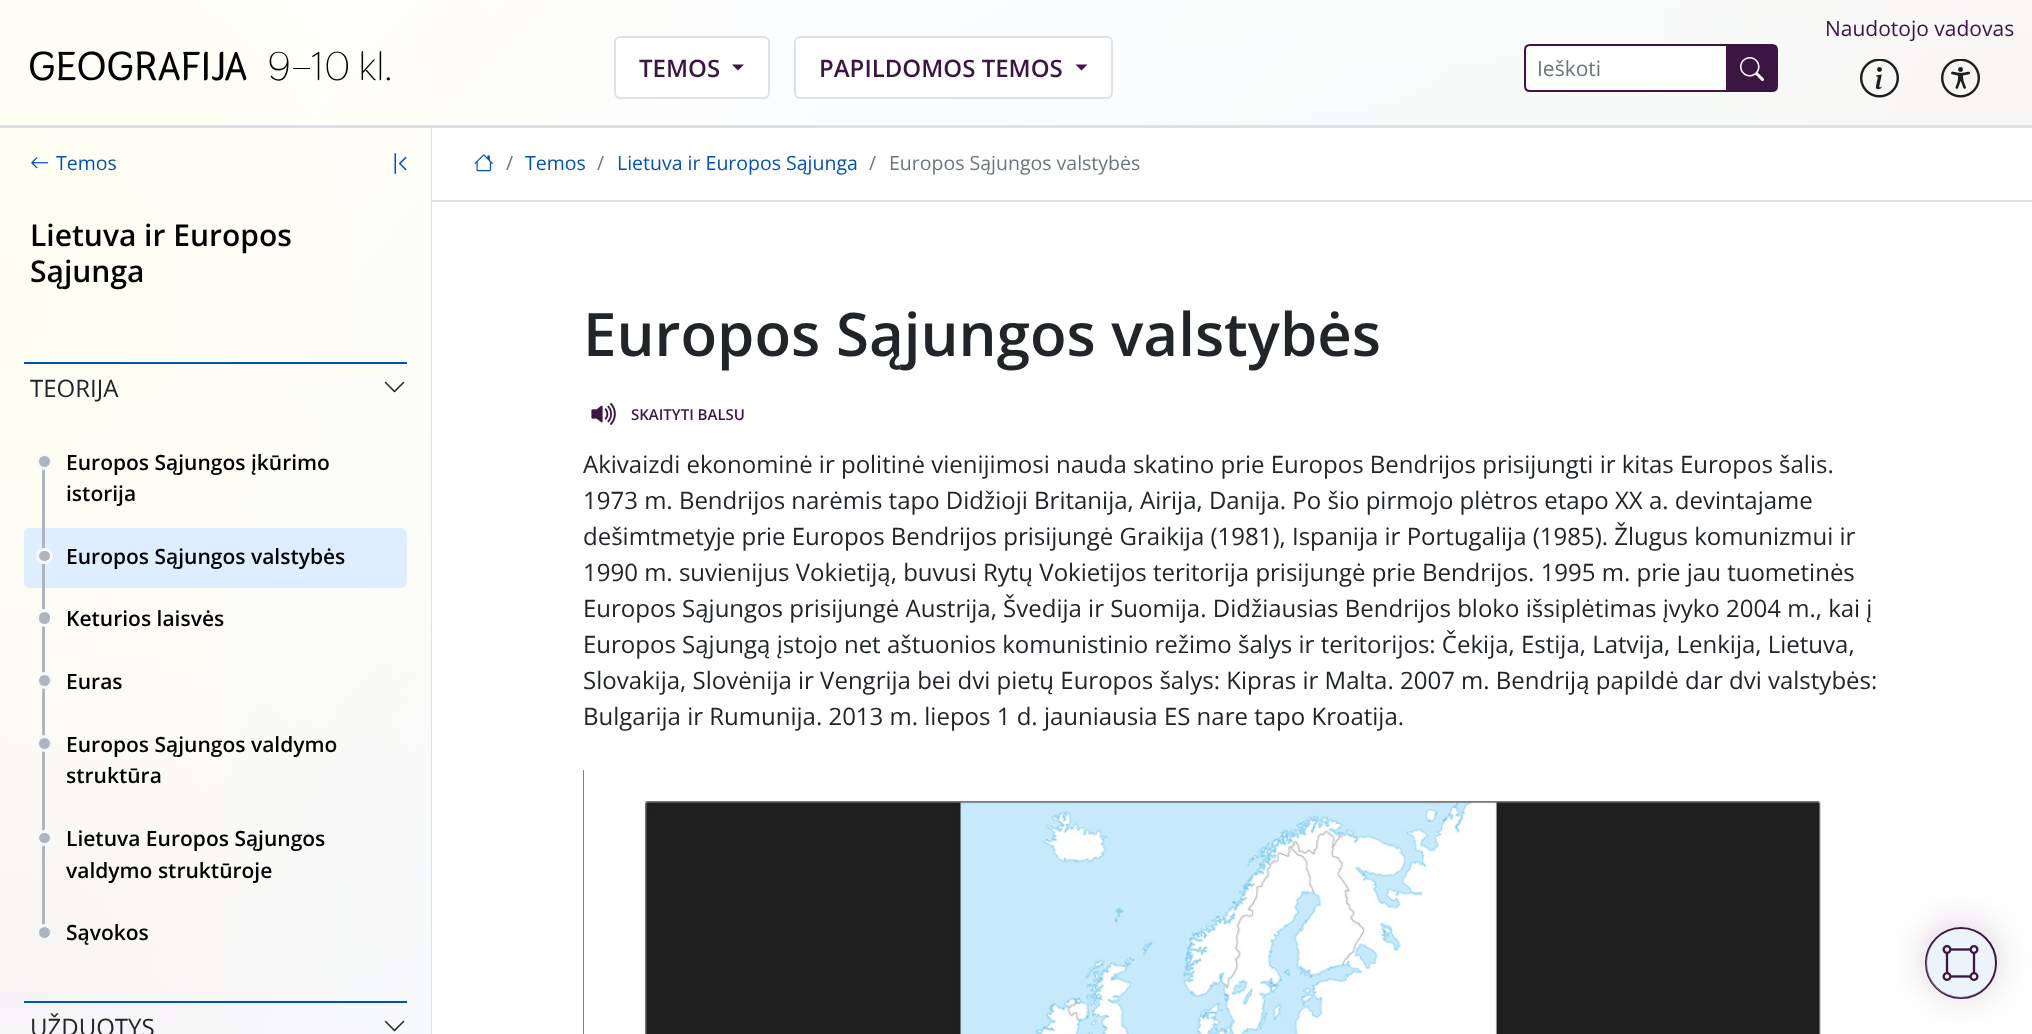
<?xml version="1.0" encoding="UTF-8"?>
<svg xmlns="http://www.w3.org/2000/svg" xmlns:xlink="http://www.w3.org/1999/xlink" width="2032" height="1034">
  <defs>
    <radialGradient id="g1" gradientUnits="userSpaceOnUse" cx="0" cy="932" r="2236"><stop offset="0" stop-color="#f4f2f4" /><stop offset="0.3" stop-color="#ffffff" /></radialGradient>
    <radialGradient id="g2" gradientUnits="userSpaceOnUse" cx="2033" cy="155" r="2215"><stop offset="0" stop-color="#fff2f7" /><stop offset="0.2" stop-color="#fff2f7" stop-opacity="0" /></radialGradient>
    <radialGradient id="g3" gradientUnits="userSpaceOnUse" cx="0" cy="311" r="2158"><stop offset="0" stop-color="#fffef1" /><stop offset="0.4" stop-color="#fffef1" stop-opacity="0" /></radialGradient>
    <radialGradient id="g4" gradientUnits="userSpaceOnUse" cx="1423" cy="994" r="1735"><stop offset="0" stop-color="#f0f5fb" /><stop offset="0.82" stop-color="#f0f5fb" stop-opacity="0" /></radialGradient>
    <radialGradient id="g5" gradientUnits="userSpaceOnUse" cx="2033" cy="880" r="2215"><stop offset="0" stop-color="#f3f9f0" /><stop offset="0.6" stop-color="#f3f9f0" stop-opacity="0" /></radialGradient>
  </defs>
  <rect width="100%" height="100%" fill="#ffffff" />
  <rect y="389" width="537" height="645" fill="url(#g1)" />
  <rect x="1664" width="368" height="125" fill="url(#g2)" />
  <rect width="740" height="991" fill="url(#g3)" />
  <rect x="233" width="1799" height="1034" fill="url(#g4)" />
  <rect x="1174" width="858" height="125" fill="url(#g5)" />
  <rect y="125" width="2032" height="3" fill="#dee2e6" />
  <image x="30" y="51" width="360" height="30" xlink:href="image1.png" />
  <image x="1860" y="59" width="39" height="39" xlink:href="image2.png" />
  <image x="1941" y="59" width="39" height="39" xlink:href="image3.png" />
  <rect x="615" y="37" width="154" height="61" rx="5" fill="#ffffff" stroke="#dee2e6" stroke-width="2" />
  <path d="M 732 64.5 h 12 l -6 6 z" fill="#3c1642" />
  <rect x="795" y="37" width="317" height="61" rx="5" fill="#ffffff" stroke="#dee2e6" stroke-width="2" />
  <path d="M 1075.5 64.5 h 12 l -6 6 z" fill="#3c1642" />
  <path d="M 1530 45 h 197 v 46 h -197 c -3 0 -5 -2 -5 -5 v -36 c 0 -3 2 -5 5 -5 z" fill="#ffffff" stroke="#3c1642" stroke-width="2" />
  <path d="M 1728 45 h 44 c 3 0 5 2 5 5 v 36 c 0 3 -2 5 -5 5 h -44 z" fill="#3c1642" stroke="#3c1642" stroke-width="2" />
  <image x="1740" y="57" width="24" height="24" xlink:href="image4.png" />
  <rect x="431" y="128" width="1" height="906" fill="#dee2e6" />
  <image x="31" y="157" width="18" height="12" xlink:href="image5.png" />
  <image x="394" y="153" width="13" height="21" xlink:href="image6.png" />
  <rect x="24" y="362" width="383" height="2" fill="#0052b3" />
  <image x="384" y="381" width="21" height="12" xlink:href="image7.png" />
  <rect x="24" y="528" width="383" height="60" rx="6" fill="#deedff" />
  <rect x="42" y="469" width="3" height="456" fill="#adb5bd" />
  <circle cx="44.5" cy="461.5" r="7" fill="#adb5bd" stroke="#f8f9fa" stroke-width="3" />
  <rect x="37.5" y="549.5" width="14" height="13" rx="6.5" fill="#adb5bd" stroke="#f8f9fa" stroke-width="3" />
  <rect x="37.5" y="610.5" width="14" height="15" rx="7" fill="#adb5bd" stroke="#f8f9fa" stroke-width="3" />
  <circle cx="44.5" cy="680.5" r="7" fill="#adb5bd" stroke="#f8f9fa" stroke-width="3" />
  <circle cx="44.5" cy="743.5" r="7" fill="#adb5bd" stroke="#f8f9fa" stroke-width="3" />
  <rect x="37.5" y="831.5" width="14" height="13" rx="6.5" fill="#adb5bd" stroke="#f8f9fa" stroke-width="3" />
  <circle cx="44.5" cy="932.5" r="7" fill="#adb5bd" stroke="#f8f9fa" stroke-width="3" />
  <rect x="24" y="1001" width="383" height="2" fill="#0052b3" />
  <image x="384" y="1020" width="21" height="12" xlink:href="image8.png" />
  <rect x="432" y="128" width="1600" height="906" fill="#ffffff" />
  <rect x="432" y="200" width="1600" height="2" fill="#dee2e6" />
  <image x="474" y="154" width="19" height="18" xlink:href="image9.png" />
  <image x="591" y="402" width="25" height="24" xlink:href="image10.png" />
  <image x="583" y="770" width="1238" height="264" xlink:href="image11.png" />
  <rect x="1925" y="924" width="72" height="72" rx="36" fill="#d8d0d9" filter="blur(18px)" />
  <circle cx="1961" cy="963" r="35" fill="#ffffff" stroke="#3c1642" stroke-width="2" />
  <circle cx="1960.5" cy="963.5" r="34.5" fill="#ccdcf0" fill-opacity="0.35" />
  <image x="1942" y="944" width="37" height="37" xlink:href="image12.png" />
  <text x="1825" y="36" style="font-family: Open Sans; font-size: 21px; fill: #3c1642">Naudotojo vadovas</text>
  <text x="639" y="77" style="font-family: Open Sans; font-size: 24px; font-weight: 600; fill: #3c1642">TEMOS</text>
  <text x="819" y="77" style="font-family: Open Sans; font-size: 24px; font-weight: 600; fill: #3c1642">PAPILDOMOS TEMOS</text>
  <text x="1537" y="76" style="font-family: Open Sans; font-size: 21px; fill: #6c757d">Ieškoti</text>
  <text x="56" y="170" style="font-family: Open Sans; font-size: 19.5px; fill: #0052b3">Temos</text>
  <text x="30" y="246" style="font-family: Open Sans; font-size: 30px; font-weight: 600; fill: #000000">Lietuva ir Europos</text>
  <text x="30" y="282" style="font-family: Open Sans; font-size: 30px; font-weight: 600; fill: #000000">Sąjunga</text>
  <text x="30" y="397" style="font-family: Open Sans; font-size: 24px; fill: #212529">TEORIJA</text>
  <text x="66" y="470" style="font-family: Open Sans; font-size: 21px; font-weight: 600; fill: #000000">Europos Sąjungos įkūrimo</text>
  <text x="66" y="501" style="font-family: Open Sans; font-size: 21px; font-weight: 600; fill: #000000">istorija</text>
  <text x="66" y="564" style="font-family: Open Sans; font-size: 21px; font-weight: 600; fill: #000000">Europos Sąjungos valstybės</text>
  <text x="66" y="626" style="font-family: Open Sans; font-size: 21px; font-weight: 600; fill: #000000">Keturios laisvės</text>
  <text x="66" y="689" style="font-family: Open Sans; font-size: 21px; font-weight: 600; fill: #000000">Euras</text>
  <text x="66" y="752" style="font-family: Open Sans; font-size: 21px; font-weight: 600; fill: #000000">Europos Sąjungos valdymo</text>
  <text x="66" y="783" style="font-family: Open Sans; font-size: 21px; font-weight: 600; fill: #000000">struktūra</text>
  <text x="66" y="846" style="font-family: Open Sans; font-size: 21px; font-weight: 600; fill: #000000">Lietuva Europos Sąjungos</text>
  <text x="66" y="878" style="font-family: Open Sans; font-size: 21px; font-weight: 600; fill: #000000">valdymo struktūroje</text>
  <text x="66" y="940" style="font-family: Open Sans; font-size: 21px; font-weight: 600; fill: #000000">Sąvokos</text>
  <text x="30" y="1036" style="font-family: Open Sans; font-size: 24px; fill: #212529">UŽDUOTYS</text>
  <text x="506" y="170" style="font-family: Open Sans; font-size: 19.5px; fill: #6c757d">/</text>
  <text x="525" y="170" style="font-family: Open Sans; font-size: 19.5px; fill: #0052b3">Temos</text>
  <text x="597" y="170" style="font-family: Open Sans; font-size: 19.5px; fill: #6c757d">/</text>
  <text x="617" y="170" style="font-family: Open Sans; font-size: 19.5px; fill: #0052b3">Lietuva ir Europos Sąjunga</text>
  <text x="869" y="170" style="font-family: Open Sans; font-size: 19.5px; fill: #6c757d">/</text>
  <text x="889" y="170" style="font-family: Open Sans; font-size: 19.5px; fill: #6c757d">Europos Sąjungos valstybės</text>
  <text x="583" y="356" style="font-family: Open Sans; font-size: 60px; font-weight: 600; fill: #212529">Europos Sąjungos valstybės</text>
  <text x="631" y="420" style="font-family: Open Sans; font-size: 15px; font-weight: 600; fill: #3c1642">SKAITYTI BALSU</text>
  <text x="583" y="473" style="font-family: Open Sans; font-size: 24px; fill: #212529">Akivaizdi ekonominė ir politinė vienijimosi nauda skatino prie Europos Bendrijos prisijungti ir kitas Europos šalis.</text>
  <text x="583" y="509" style="font-family: Open Sans; font-size: 24px; fill: #212529">1973 m. Bendrijos narėmis tapo Didžioji Britanija, Airija, Danija. Po šio pirmojo plėtros etapo XX a. devintajame</text>
  <text x="583" y="545" style="font-family: Open Sans; font-size: 24px; fill: #212529">dešimtmetyje prie Europos Bendrijos prisijungė Graikija (1981), Ispanija ir Portugalija (1985). Žlugus komunizmui ir</text>
  <text x="583" y="581" style="font-family: Open Sans; font-size: 24px; fill: #212529">1990 m. suvienijus Vokietiją, buvusi Rytų Vokietijos teritorija prisijungė prie Bendrijos. 1995 m. prie jau tuometinės</text>
  <text x="583" y="617" style="font-family: Open Sans; font-size: 24px; fill: #212529">Europos Sąjungos prisijungė Austrija, Švedija ir Suomija. Didžiausias Bendrijos bloko išsiplėtimas įvyko 2004 m., kai į</text>
  <text x="583" y="653" style="font-family: Open Sans; font-size: 24px; fill: #212529">Europos Sąjungą įstojo net aštuonios komunistinio režimo šalys ir teritorijos: Čekija, Estija, Latvija, Lenkija, Lietuva,</text>
  <text x="583" y="689" style="font-family: Open Sans; font-size: 24px; fill: #212529">Slovakija, Slovėnija ir Vengrija bei dvi pietų Europos šalys: Kipras ir Malta. 2007 m. Bendriją papildė dar dvi valstybės:</text>
  <text x="583" y="725" style="font-family: Open Sans; font-size: 24px; fill: #212529">Bulgarija ir Rumunija. 2013 m. liepos 1 d. jauniausia ES nare tapo Kroatija.</text>
</svg>
